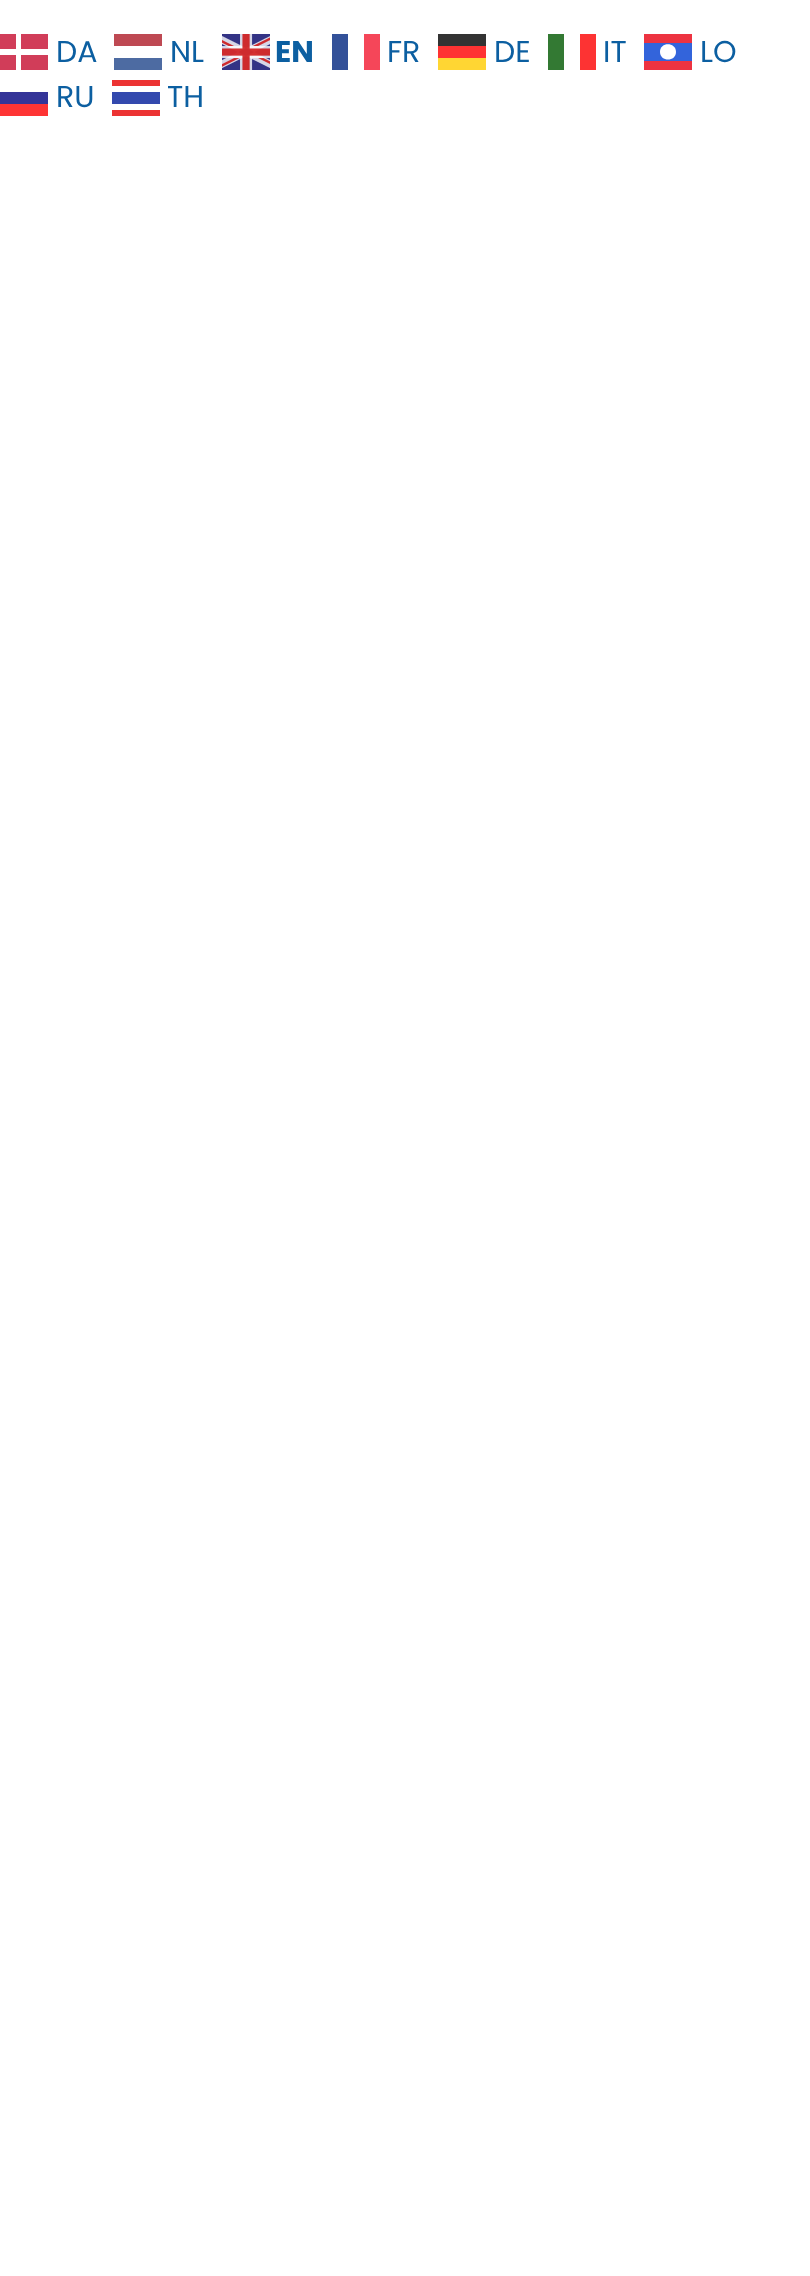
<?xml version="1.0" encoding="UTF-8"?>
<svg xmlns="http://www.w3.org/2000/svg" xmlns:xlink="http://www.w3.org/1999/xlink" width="810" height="2276">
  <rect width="100%" height="100%" fill="#ffffff" />
  <rect y="34" width="48" height="36" fill="#d13d59" />
  <rect x="16" y="34" width="5" height="36" fill="#ffffff" />
  <rect y="49" width="48" height="6" fill="#ffffff" />
  <rect x="114" y="58" width="48" height="12" fill="#4d6ba2" />
  <rect x="114" y="34" width="48" height="12" fill="#be4953" />
  <image x="222" y="34" width="48" height="36" xlink:href="image1.png" />
  <rect x="332" y="34" width="16" height="36" fill="#335199" />
  <rect x="364" y="34" width="16" height="36" fill="#f54659" />
  <rect x="438" y="58" width="48" height="12" fill="#ffd633" />
  <rect x="438" y="34" width="48" height="12" fill="#333333" />
  <rect x="438" y="46" width="48" height="12" fill="#ff3333" />
  <rect x="548" y="34" width="16" height="36" fill="#337933" />
  <rect x="580" y="34" width="16" height="36" fill="#fd3333" />
  <rect x="644" y="34" width="48" height="36" fill="#ed3341" />
  <rect x="644" y="43" width="48" height="18" fill="#3364db" />
  <path d="M 676 52 c 0 10 -16 10 -16 0 c 0 -10.5 16 -10 16 0 z" fill="#ffffff" fill-rule="evenodd" />
  <rect y="92" width="48" height="12" fill="#343498" />
  <rect y="104" width="48" height="12" fill="#fe3434" />
  <rect x="112" y="92" width="48" height="12" fill="#3349ae" />
  <path d="M 112 80 h 48 v 6 h -48 z m 0 30 h 48 v 6 h -48 z" fill="#ec3333" fill-rule="evenodd" />
  <image x="219" y="288" width="374" height="108" xlink:href="image2.png" />
  <image x="498" y="650" width="25" height="15" xlink:href="image3.png" />
  <image x="196" y="733" width="60" height="61" xlink:href="image4.png" />
  <image x="372" y="737" width="68" height="53" xlink:href="image5.png" />
  <image x="86" y="854" width="39" height="35" xlink:href="image6.png" />
  <text x="56" y="62" style="font-family: Poppins; font-size: 30px; fill: #0c5fa1">DA</text>
  <text x="170" y="62" style="font-family: Poppins; font-size: 30px; fill: #0c5fa1">NL</text>
  <text x="275" y="62" style="font-family: Poppins; font-size: 30px; font-weight: bold; fill: #0c5fa1">EN</text>
  <text x="387" y="62" style="font-family: Poppins; font-size: 30px; fill: #0c5fa1">FR</text>
  <text x="494" y="62" style="font-family: Poppins; font-size: 30px; fill: #0c5fa1">DE</text>
  <text x="603" y="62" style="font-family: Poppins; font-size: 30px; fill: #0c5fa1">IT</text>
  <text x="700" y="62" style="font-family: Poppins; font-size: 30px; fill: #0c5fa1">LO</text>
  <text x="56" y="107" style="font-family: Poppins; font-size: 30px; fill: #0c5fa1">RU</text>
  <text x="167" y="107" style="font-family: Poppins; font-size: 30px; fill: #0c5fa1">TH</text>
</svg>
